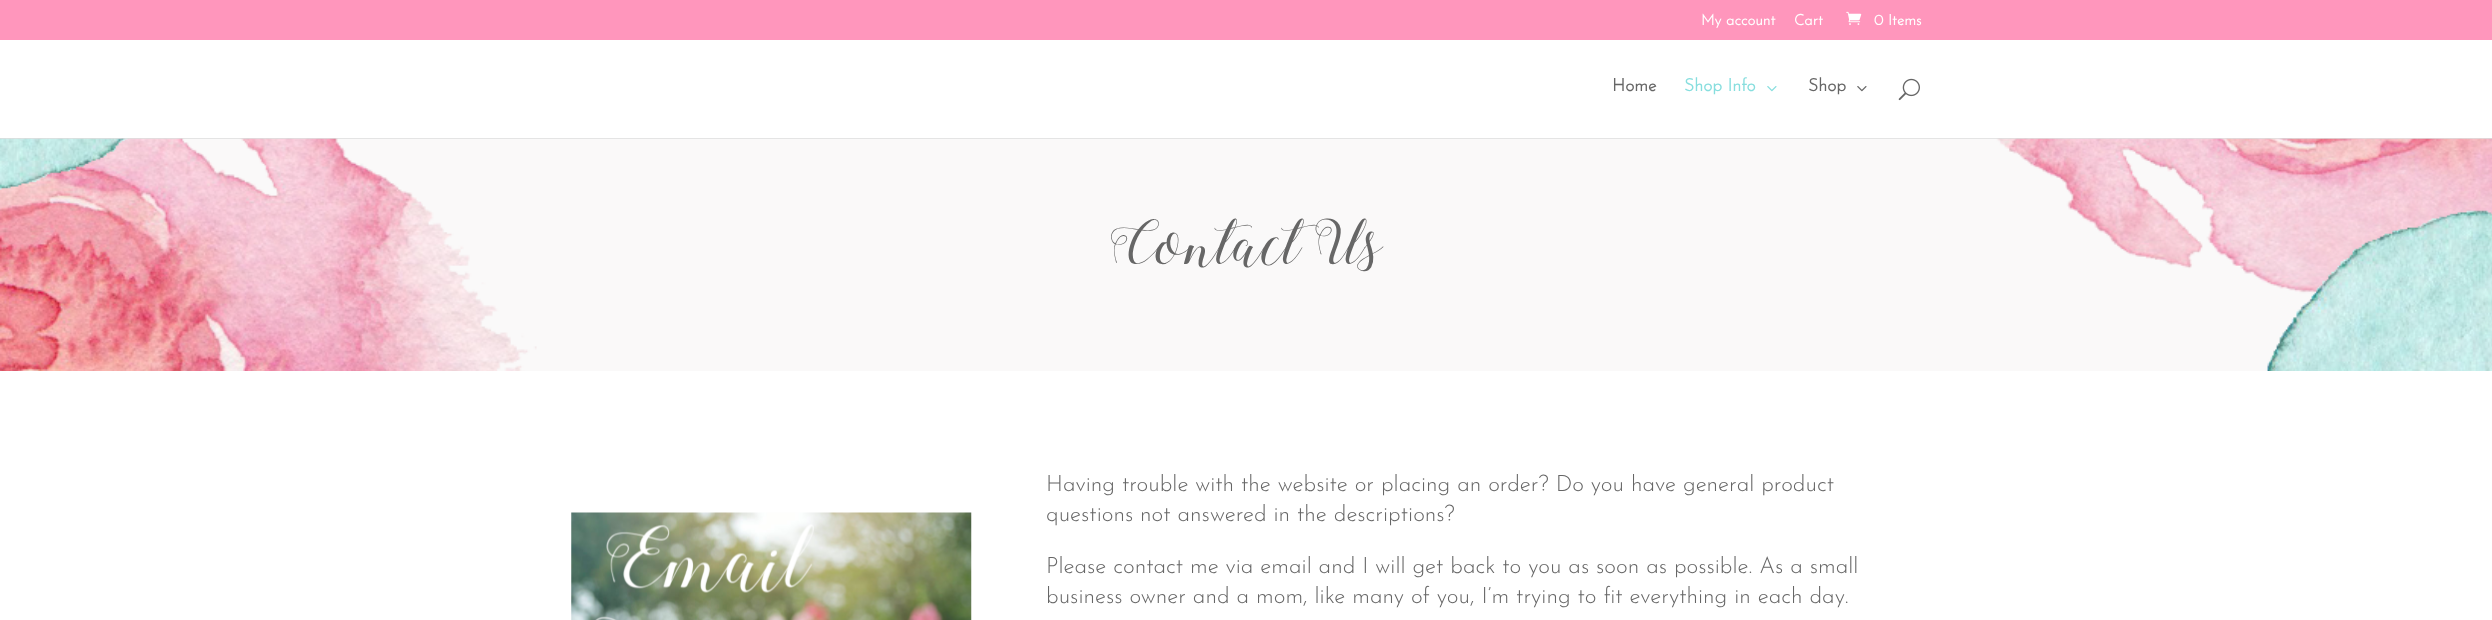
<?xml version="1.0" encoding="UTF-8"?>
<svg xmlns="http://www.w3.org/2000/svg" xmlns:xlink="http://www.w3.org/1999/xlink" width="2492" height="620">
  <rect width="100%" height="100%" fill="#ffffff" />
  <rect width="2492" height="40" fill="#ff96bc" />
  <image x="1846" y="11" width="16" height="14" xlink:href="image1.png" />
  <image x="0" y="138" width="2492" height="233" xlink:href="image5.png" />
  <path d="M 0 138 v 1 h 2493 v -100 h -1 v 99 z" fill="#000000" fill-opacity="0.1" />
  <image x="1767" y="86" width="10" height="6" xlink:href="image2.png" />
  <image x="1857" y="86" width="10" height="6" xlink:href="image3.png" />
  <image x="1898" y="78" width="22" height="23" xlink:href="image4.png" />
  <image x="571" y="512" width="401" height="108" xlink:href="image6.png" />
  <text x="1701" y="25" style="font-family: Josefin Sans; font-size: 15px; font-weight: bold; fill: #ffffff">My account</text>
  <text x="1794" y="25" style="font-family: Josefin Sans; font-size: 15px; font-weight: bold; fill: #ffffff">Cart</text>
  <text x="1874" y="25" style="font-family: Josefin Sans; font-size: 15px; font-weight: bold; fill: #ffffff">0 Items</text>
  <text x="1612" y="91" style="font-family: Josefin Sans; font-size: 17.5px; font-weight: bold; fill: #666666">Home</text>
  <text x="1684" y="91" style="font-family: Josefin Sans; font-size: 17.5px; font-weight: bold; fill: #87dede">Shop Info</text>
  <text x="1808" y="91" style="font-family: Josefin Sans; font-size: 17.5px; font-weight: bold; fill: #666666">Shop</text>
  <text x="1111" y="264" style="font-family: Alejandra; font-size: 60px; fill: #666666">Contact Us</text>
  <text x="1046" y="491" style="font-family: Josefin Sans; font-size: 22.5px; font-weight: 300; fill: #666666">Having trouble with the website or placing an order? Do you have general product</text>
  <text x="1046" y="521" style="font-family: Josefin Sans; font-size: 22.5px; font-weight: 300; fill: #666666">questions not answered in the descriptions?</text>
  <text x="1046" y="573" style="font-family: Josefin Sans; font-size: 22.5px; font-weight: 300; fill: #666666">Please contact me via email and I will get back to you as soon as possible. As a small</text>
  <text x="1046" y="603" style="font-family: Josefin Sans; font-size: 22.5px; font-weight: 300; fill: #666666">business owner and a mom, like many of you, I’m trying to fit everything in each day.</text>
</svg>
